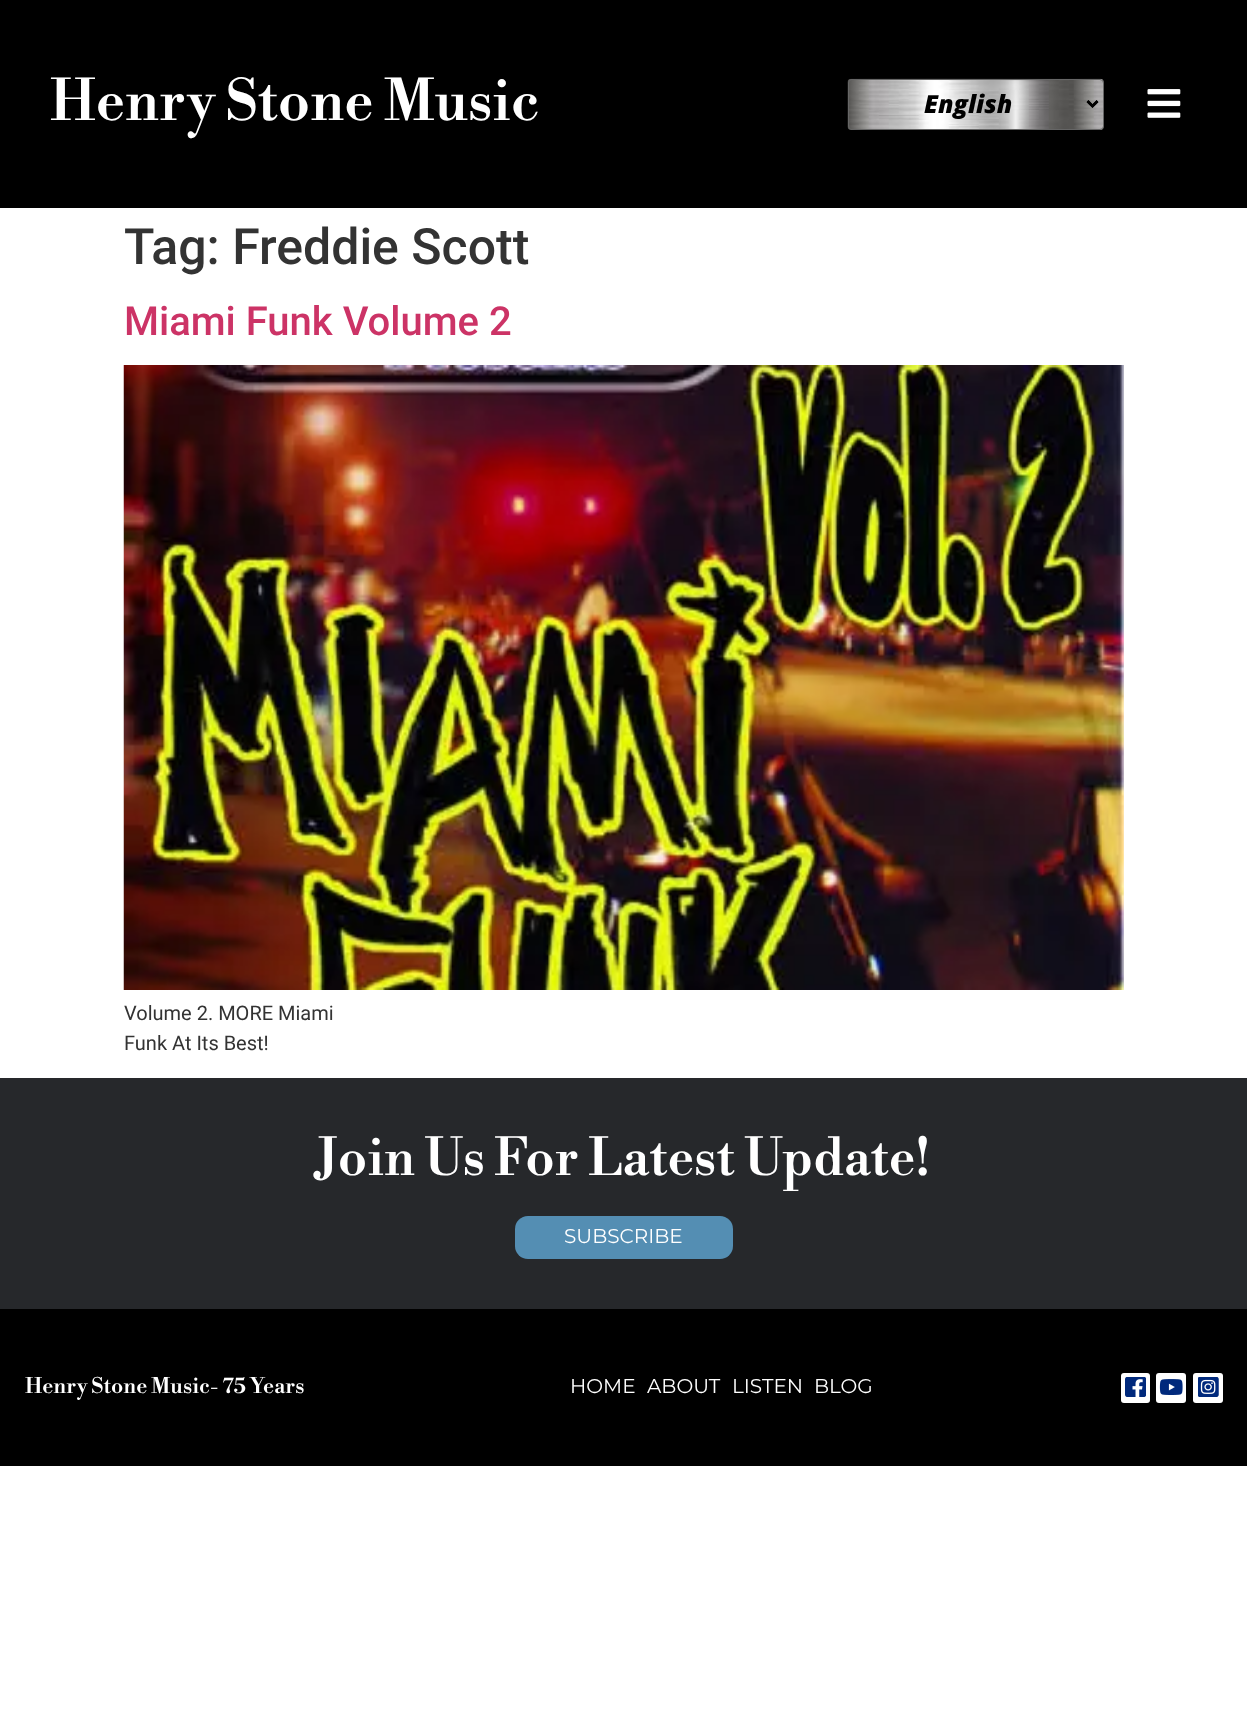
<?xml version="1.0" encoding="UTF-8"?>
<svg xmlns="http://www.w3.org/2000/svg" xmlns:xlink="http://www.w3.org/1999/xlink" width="1247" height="1718">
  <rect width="100%" height="100%" fill="#ffffff" />
  <rect width="1247" height="208" fill="#000000" />
  <image x="847" y="78" width="257" height="52" xlink:href="image1.png" />
  <rect x="848.5" y="79.5" width="255" height="50" rx="3.5" fill="none" stroke="#666666" />
  <path d="M 1087.5 101 l 5 5 l 5 -5" fill="none" stroke="#000000" stroke-width="2.5" />
  <image x="1147" y="89" width="34" height="29" xlink:href="image2.png" />
  <image x="123" y="365" width="1001" height="625" xlink:href="image3.png" />
  <rect y="1078" width="1247" height="231" fill="#26282b" />
  <rect x="515" y="1216" width="218" height="43" rx="13" fill="#548eb3" />
  <rect y="1309" width="1247" height="157" fill="#000000" />
  <rect x="1121" y="1373" width="29" height="30" rx="3" fill="#ffffff" />
  <image x="1125" y="1377" width="21" height="20" xlink:href="image4.png" />
  <rect x="1156" y="1373" width="30" height="30" rx="3" fill="#ffffff" />
  <image x="1159" y="1379" width="24" height="16" xlink:href="image5.png" />
  <rect x="1193" y="1373" width="30" height="30" rx="3" fill="#ffffff" />
  <image x="1198" y="1377" width="21" height="20" xlink:href="image6.png" />
  <text x="50" y="120" style="font-family: Libre Bodoni; font-size: 56.25px; font-weight: 500; fill: #ffffff">Henry Stone Music</text>
  <text x="924" y="113" style="font-family: Open Sans; font-size: 25px; font-weight: 800; font-style: italic; fill: #000000">English</text>
  <text x="124" y="264" style="font-family: Roboto; font-size: 50px; font-weight: 500; fill: #333333">Tag: Freddie Scott</text>
  <text x="124" y="335" style="font-family: Roboto; font-size: 40px; font-weight: 500; fill: #cc3366">Miami Funk Volume 2</text>
  <text x="124" y="1020" style="font-family: Roboto; font-size: 20px; fill: #333333">Volume 2. MORE Miami</text>
  <text x="124" y="1050" style="font-family: Roboto; font-size: 20px; fill: #333333">Funk At Its Best!</text>
  <text x="317" y="1175" style="font-family: Libre Bodoni; font-size: 51.25px; font-weight: 500; fill: #ffffff">Join Us For Latest Update!</text>
  <text x="564" y="1243" style="font-family: Montserrat; font-size: 20px; fill: #ffffff">SUBSCRIBE</text>
  <text x="25" y="1393" style="font-family: Libre Bodoni; font-size: 21.25px; font-weight: 500; fill: #ffffff">Henry Stone Music- 75 Years</text>
  <text x="570" y="1393" style="font-family: Montserrat; font-size: 20px; fill: #ffffff">HOME</text>
  <text x="647" y="1393" style="font-family: Montserrat; font-size: 20px; fill: #ffffff">ABOUT</text>
  <text x="732" y="1393" style="font-family: Montserrat; font-size: 20px; fill: #ffffff">LISTEN</text>
  <text x="814" y="1393" style="font-family: Montserrat; font-size: 20px; fill: #ffffff">BLOG</text>
</svg>
